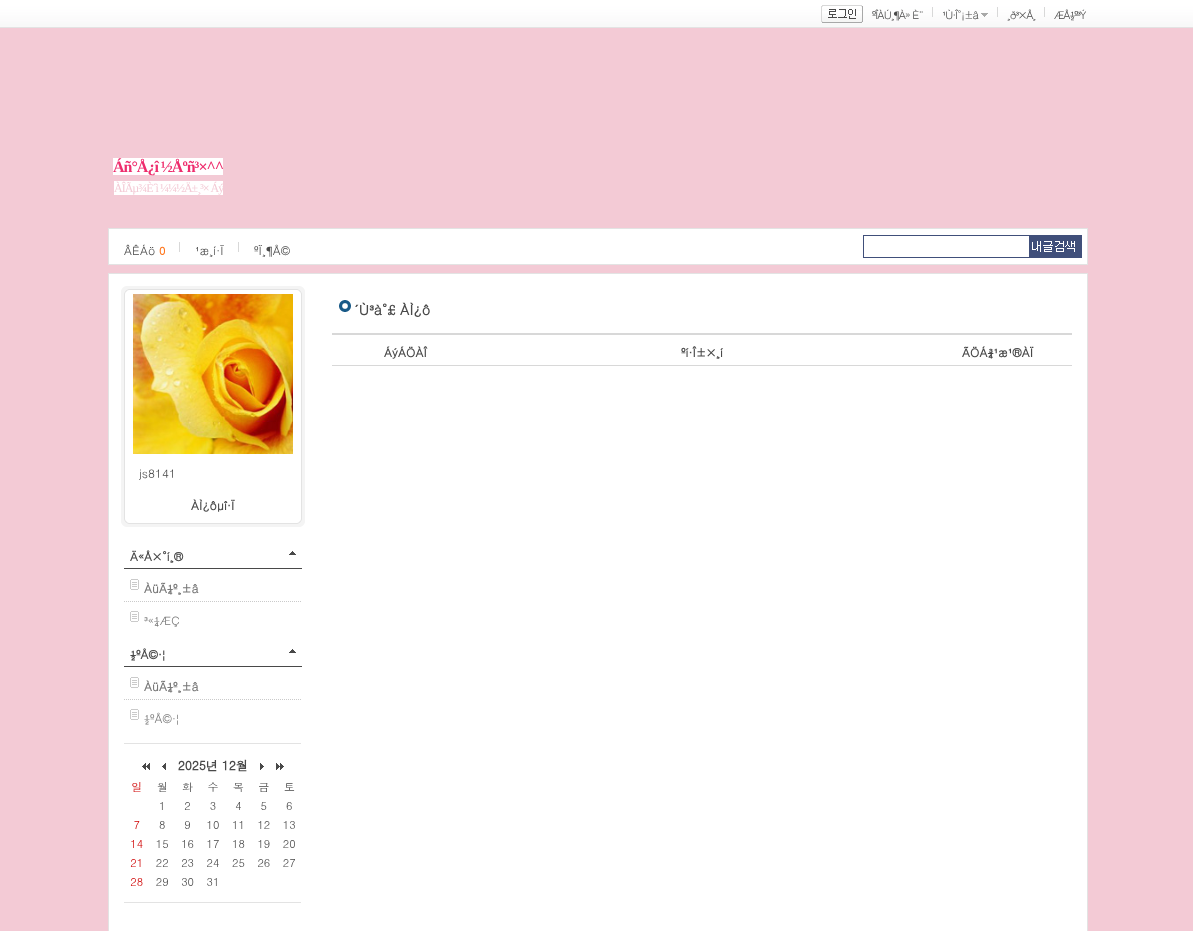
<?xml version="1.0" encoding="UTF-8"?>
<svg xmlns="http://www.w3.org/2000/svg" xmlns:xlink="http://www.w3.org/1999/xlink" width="1193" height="931">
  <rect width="100%" height="100%" fill="#f3cad5" />
  <image x="0" y="0" width="1193" height="28" xlink:href="image1.png" />
  <image x="821" y="5" width="42" height="18" xlink:href="image2.png" />
  <rect x="932" y="7" width="1" height="10" fill="#d8d8d8" />
  <rect x="997" y="7" width="1" height="10" fill="#d8d8d8" />
  <image x="981" y="13" width="7" height="4" xlink:href="image3.png" />
  <rect x="1044" y="7" width="1" height="10" fill="#d8d8d8" />
  <rect x="113" y="158" width="110" height="17" fill="#ffffff" />
  <rect x="114" y="181" width="109" height="14" fill="#ffffff" />
  <rect x="108.5" y="228.5" width="979" height="36" fill="#ffffff" stroke="#e3e3e3" />
  <rect x="179" y="242" width="1" height="10" fill="#d8d8d8" />
  <rect x="238" y="242" width="1" height="10" fill="#d8d8d8" />
  <rect x="863.5" y="235.5" width="218" height="22" fill="none" stroke="#404f7a" />
  <image x="1029" y="236" width="52" height="21" xlink:href="image4.png" />
  <rect x="108.5" y="273.5" width="979" height="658" fill="#ffffff" stroke="#e3e3e3" />
  <image x="339" y="300" width="12" height="12" xlink:href="image5.png" />
  <rect x="332" y="333" width="740" height="2" fill="#d8d8d8" />
  <rect x="332" y="365" width="740" height="1" fill="#d8d8d8" />
  <image x="121" y="286" width="184" height="8" xlink:href="image6.png" />
  <image x="121" y="294" width="184" height="225" xlink:href="image7.png" />
  <image x="133" y="294" width="160" height="160" xlink:href="image8.png" />
  <image x="121" y="519" width="184" height="8" xlink:href="image9.png" />
  <rect x="124" y="568" width="178" height="1" fill="#494949" />
  <image x="289" y="551" width="7" height="4" xlink:href="image10.png" />
  <image x="130" y="579" width="9" height="11" xlink:href="image11.png" />
  <path d="M 124 601.5 h 178" fill="none" stroke="#cacaca" stroke-dasharray="1 1" />
  <image x="130" y="611" width="9" height="11" xlink:href="image11.png" />
  <rect x="124" y="666" width="178" height="1" fill="#494949" />
  <image x="289" y="649" width="7" height="4" xlink:href="image10.png" />
  <image x="130" y="677" width="9" height="11" xlink:href="image11.png" />
  <path d="M 124 699.5 h 178" fill="none" stroke="#cacaca" stroke-dasharray="1 1" />
  <image x="130" y="709" width="9" height="11" xlink:href="image11.png" />
  <image x="124" y="743" width="177" height="160" xlink:href="image12.png" />
  <text x="872" y="19" style="font-family: Dotum; font-size: 11px; letter-spacing: -1px; fill: #494949">ºÎÀÚ¸¶À» È¨</text>
  <text x="942" y="19" style="font-family: Dotum; font-size: 11px; letter-spacing: -1px; fill: #494949">¹Ù·Î°¡±â</text>
  <text x="1007" y="19" style="font-family: Dotum; font-size: 11px; letter-spacing: -1px; fill: #494949">¸ð³×Å¸</text>
  <text x="1054" y="19" style="font-family: Dotum; font-size: 11px; letter-spacing: -1px; fill: #494949">ÆÅ½º³Ý</text>
  <text x="113" y="172" style="font-family: Liberation Serif; font-size: 16px; font-weight: bold; letter-spacing: -1px; fill: #ee2d6d">Áñ°Å¿î ½Åºñ³×^^</text>
  <text x="114" y="192" style="font-family: Liberation Serif; font-size: 12px; letter-spacing: -1px; fill: #f3cad5">ÀÎÃµ¾È´ì ¼¼½Ä±¸³× Áý</text>
  <text x="124" y="255" style="font-family: Dotum; font-size: 12px; fill: #494949">ÂÊÁö</text>
  <text x="159" y="255" style="font-family: Dotum; font-size: 11px; font-weight: bold; fill: #ff751c">0</text>
  <text x="195" y="255" style="font-family: Dotum; font-size: 12px; fill: #494949">¹æ¸í·Ï</text>
  <text x="254" y="255" style="font-family: Dotum; font-size: 12px; fill: #494949">ºÏ¸¶Å©</text>
  <text x="354" y="315" style="font-family: Dotum; font-size: 14px; font-weight: bold; fill: #494949">´Ù³à°£ ÀÌ¿ô</text>
  <text x="384" y="357" style="font-family: Dotum; font-size: 12px; font-weight: bold; fill: #494949">ÁýÁÖÀÎ</text>
  <text x="681" y="357" style="font-family: Dotum; font-size: 12px; font-weight: bold; fill: #494949">ºí·Î±×¸í</text>
  <text x="962" y="357" style="font-family: Dotum; font-size: 12px; font-weight: bold; fill: #494949">ÃÖÁ¾¹æ¹®ÀÏ</text>
  <text x="139" y="478" style="font-family: Dotum; font-size: 12px; fill: #494949">js8141</text>
  <text x="191" y="510" style="font-family: Dotum; font-size: 12px; font-weight: bold; fill: #494949">ÀÌ¿ôµî·Ï</text>
  <text x="130" y="561" style="font-family: Dotum; font-size: 12px; font-weight: bold; fill: #494949">Ä«Å×°í¸®</text>
  <text x="144" y="593" style="font-family: Dotum; font-size: 12px; font-weight: bold; fill: #797979">ÀüÃ¼º¸±â</text>
  <text x="144" y="625" style="font-family: Dotum; font-size: 12px; fill: #797979">³«¼ÆÇ</text>
  <text x="130" y="659" style="font-family: Dotum; font-size: 12px; font-weight: bold; fill: #494949">½ºÅ©·¦</text>
  <text x="144" y="691" style="font-family: Dotum; font-size: 12px; font-weight: bold; fill: #797979">ÀüÃ¼º¸±â</text>
  <text x="144" y="723" style="font-family: Dotum; font-size: 12px; fill: #797979">½ºÅ©·¦</text>
</svg>
